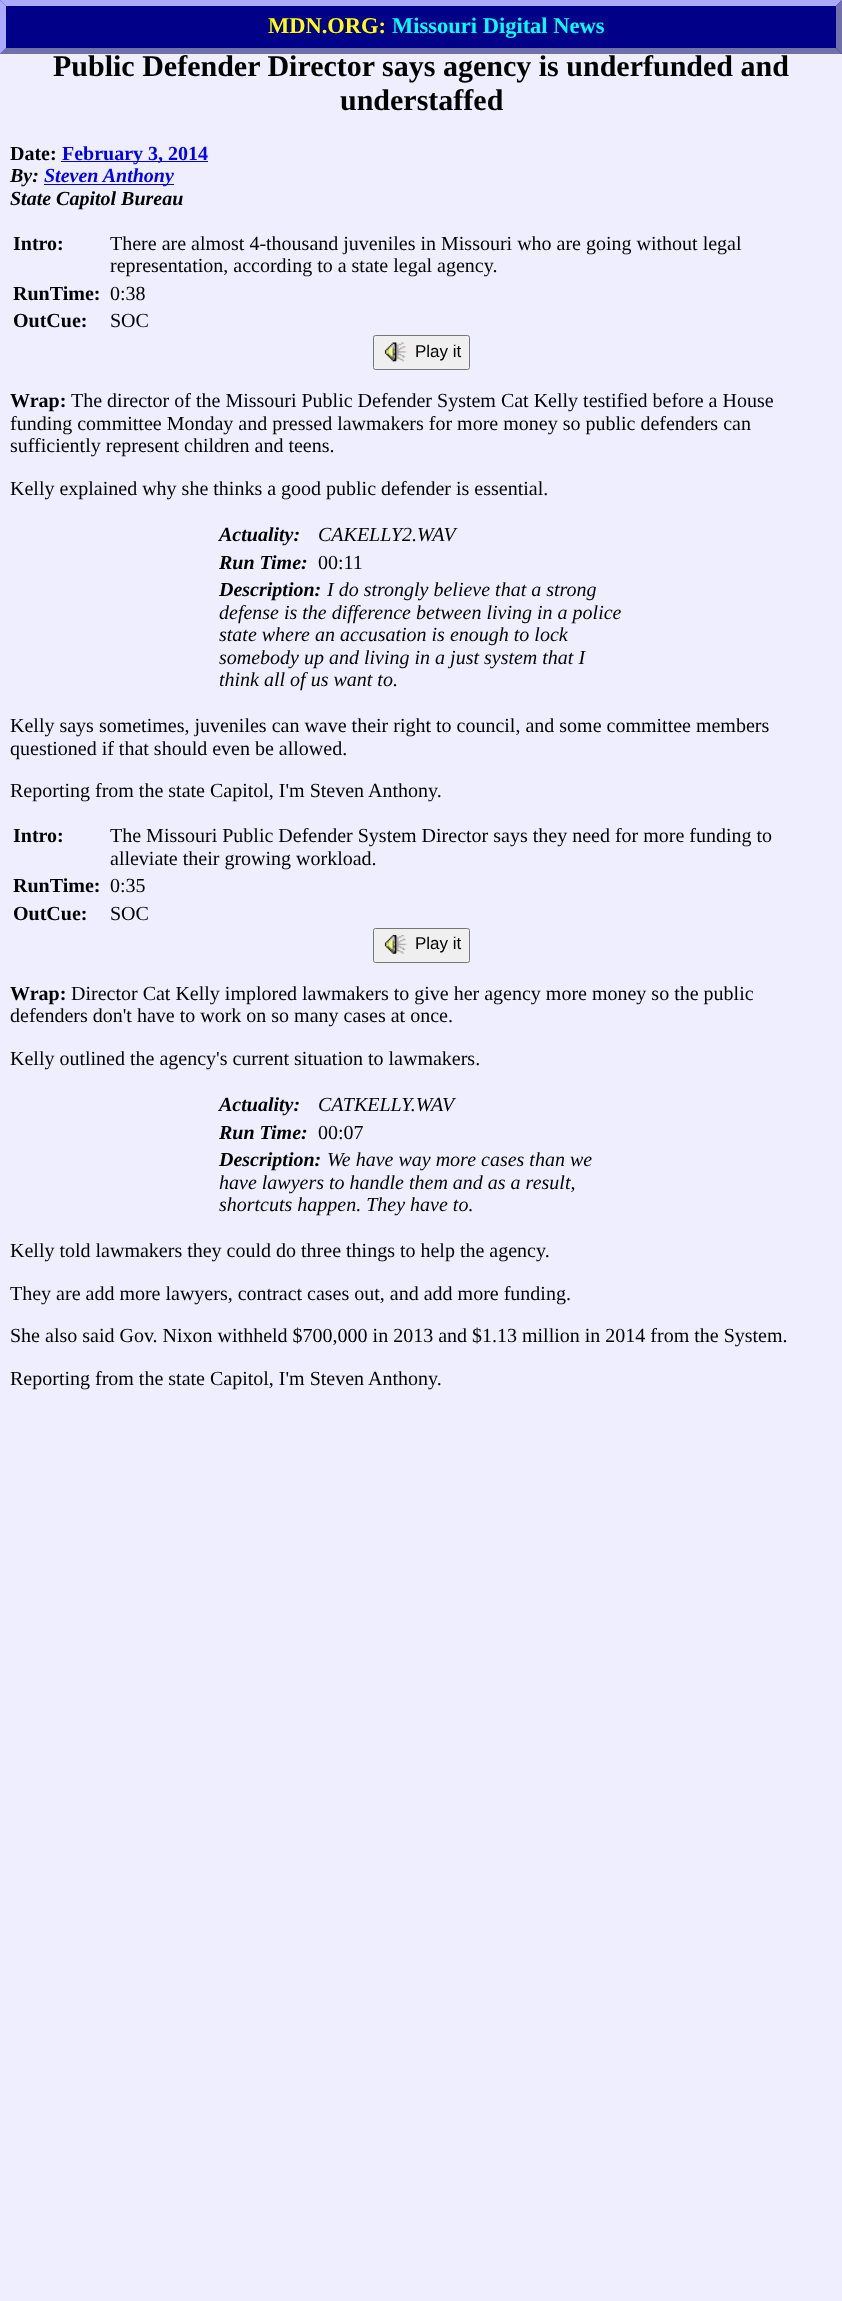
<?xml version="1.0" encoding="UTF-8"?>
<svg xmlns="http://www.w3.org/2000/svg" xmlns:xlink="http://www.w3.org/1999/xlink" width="842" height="2301">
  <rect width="100%" height="100%" fill="#eeeeff" />
  <rect width="842" height="54" fill="#000088" />
  <path d="M 0 0 h 842 l -6 6 h -830 z" fill="#aaaaff" />
  <path d="M 842 0 v 54 l -6 -6 v -42 z" fill="#7171aa" />
  <path d="M 842 54 h -842 l 6 -6 h 830 z" fill="#7171aa" />
  <path d="M 0 54 v -54 l 6 6 v 42 z" fill="#aaaaff" />
  <rect x="61" y="161" width="147" height="1" fill="#0000ee" />
  <rect x="44" y="184" width="130" height="1" fill="#0000ee" />
  <rect x="373.5" y="335.5" width="96" height="34" rx="2" fill="#efefef" stroke="#767676" />
  <image x="384" y="342" width="24" height="20" xlink:href="image1.png" />
  <rect x="373.5" y="928.5" width="96" height="34" rx="2" fill="#efefef" stroke="#767676" />
  <image x="384" y="934" width="24" height="20" xlink:href="image2.png" />
  <text x="268" y="33" style="font-family: Liberation Serif; font-size: 22.5px; font-weight: bold; fill: #ffff00">MDN.ORG:</text>
  <text x="392" y="33" style="font-family: Liberation Serif; font-size: 22.5px; font-weight: bold; fill: #00ffff">Missouri Digital News</text>
  <text x="53" y="76" style="font-family: Liberation Serif; font-size: 30px; font-weight: bold; fill: #000000">Public Defender Director says agency is underfunded and</text>
  <text x="340" y="110" style="font-family: Liberation Serif; font-size: 30px; font-weight: bold; fill: #000000">understaffed</text>
  <text x="10" y="160" style="font-family: Liberation Serif; font-size: 20px; font-weight: bold; fill: #000000">Date:</text>
  <text x="62" y="160" style="font-family: Liberation Serif; font-size: 20px; font-weight: bold; fill: #0000ee">February 3, 2014</text>
  <text x="10" y="182" style="font-family: Liberation Serif; font-size: 20px; font-weight: bold; font-style: italic; fill: #000000">By:</text>
  <text x="44" y="182" style="font-family: Liberation Serif; font-size: 20px; font-weight: bold; font-style: italic; fill: #0000ee">Steven Anthony</text>
  <text x="10" y="205" style="font-family: Liberation Serif; font-size: 20px; font-weight: bold; font-style: italic; fill: #000000">State Capitol Bureau</text>
  <text x="13" y="250" style="font-family: Liberation Serif; font-size: 20px; font-weight: bold; fill: #000000">Intro:</text>
  <text x="110" y="250" style="font-family: Liberation Serif; font-size: 20px; fill: #000000">There are almost 4-thousand juveniles in Missouri who are going without legal</text>
  <text x="110" y="272" style="font-family: Liberation Serif; font-size: 20px; fill: #000000">representation, according to a state legal agency.</text>
  <text x="13" y="300" style="font-family: Liberation Serif; font-size: 20px; font-weight: bold; fill: #000000">RunTime:</text>
  <text x="110" y="300" style="font-family: Liberation Serif; font-size: 20px; fill: #000000">0:38</text>
  <text x="13" y="327" style="font-family: Liberation Serif; font-size: 20px; font-weight: bold; fill: #000000">OutCue:</text>
  <text x="110" y="327" style="font-family: Liberation Serif; font-size: 20px; fill: #000000">SOC</text>
  <text x="415" y="357" style="font-family: Liberation Sans; font-size: 17px; fill: #000000">Play it</text>
  <text x="10" y="407" style="font-family: Liberation Serif; font-size: 20px; font-weight: bold; fill: #000000">Wrap:</text>
  <text x="71" y="407" style="font-family: Liberation Serif; font-size: 20px; fill: #000000">The director of the Missouri Public Defender System Cat Kelly testified before a House</text>
  <text x="10" y="430" style="font-family: Liberation Serif; font-size: 20px; fill: #000000">funding committee Monday and pressed lawmakers for more money so public defenders can</text>
  <text x="10" y="452" style="font-family: Liberation Serif; font-size: 20px; fill: #000000">sufficiently represent children and teens.</text>
  <text x="10" y="495" style="font-family: Liberation Serif; font-size: 20px; fill: #000000">Kelly explained why she thinks a good public defender is essential.</text>
  <text x="219" y="541" style="font-family: Liberation Serif; font-size: 20px; font-weight: bold; font-style: italic; fill: #000000">Actuality:</text>
  <text x="318" y="541" style="font-family: Liberation Serif; font-size: 20px; font-style: italic; fill: #000000">CAKELLY2.WAV</text>
  <text x="219" y="569" style="font-family: Liberation Serif; font-size: 20px; font-weight: bold; font-style: italic; fill: #000000">Run Time:</text>
  <text x="318" y="569" style="font-family: Liberation Serif; font-size: 20px; fill: #000000">00:11</text>
  <text x="219" y="596" style="font-family: Liberation Serif; font-size: 20px; font-weight: bold; font-style: italic; fill: #000000">Description:</text>
  <text x="327" y="596" style="font-family: Liberation Serif; font-size: 20px; font-style: italic; fill: #000000">I do strongly believe that a strong</text>
  <text x="219" y="619" style="font-family: Liberation Serif; font-size: 20px; font-style: italic; fill: #000000">defense is the difference between living in a police</text>
  <text x="219" y="641" style="font-family: Liberation Serif; font-size: 20px; font-style: italic; fill: #000000">state where an accusation is enough to lock</text>
  <text x="219" y="664" style="font-family: Liberation Serif; font-size: 20px; font-style: italic; fill: #000000">somebody up and living in a just system that I</text>
  <text x="219" y="686" style="font-family: Liberation Serif; font-size: 20px; font-style: italic; fill: #000000">think all of us want to.</text>
  <text x="10" y="732" style="font-family: Liberation Serif; font-size: 20px; fill: #000000">Kelly says sometimes, juveniles can wave their right to council, and some committee members</text>
  <text x="10" y="755" style="font-family: Liberation Serif; font-size: 20px; fill: #000000">questioned if that should even be allowed.</text>
  <text x="10" y="797" style="font-family: Liberation Serif; font-size: 20px; fill: #000000">Reporting from the state Capitol, I'm Steven Anthony.</text>
  <text x="13" y="842" style="font-family: Liberation Serif; font-size: 20px; font-weight: bold; fill: #000000">Intro:</text>
  <text x="110" y="842" style="font-family: Liberation Serif; font-size: 20px; fill: #000000">The Missouri Public Defender System Director says they need for more funding to</text>
  <text x="110" y="865" style="font-family: Liberation Serif; font-size: 20px; fill: #000000">alleviate their growing workload.</text>
  <text x="13" y="892" style="font-family: Liberation Serif; font-size: 20px; font-weight: bold; fill: #000000">RunTime:</text>
  <text x="110" y="892" style="font-family: Liberation Serif; font-size: 20px; fill: #000000">0:35</text>
  <text x="13" y="920" style="font-family: Liberation Serif; font-size: 20px; font-weight: bold; fill: #000000">OutCue:</text>
  <text x="110" y="920" style="font-family: Liberation Serif; font-size: 20px; fill: #000000">SOC</text>
  <text x="415" y="949" style="font-family: Liberation Sans; font-size: 17px; fill: #000000">Play it</text>
  <text x="10" y="1000" style="font-family: Liberation Serif; font-size: 20px; font-weight: bold; fill: #000000">Wrap:</text>
  <text x="71" y="1000" style="font-family: Liberation Serif; font-size: 20px; fill: #000000">Director Cat Kelly implored lawmakers to give her agency more money so the public</text>
  <text x="10" y="1022" style="font-family: Liberation Serif; font-size: 20px; fill: #000000">defenders don't have to work on so many cases at once.</text>
  <text x="10" y="1065" style="font-family: Liberation Serif; font-size: 20px; fill: #000000">Kelly outlined the agency's current situation to lawmakers.</text>
  <text x="219" y="1111" style="font-family: Liberation Serif; font-size: 20px; font-weight: bold; font-style: italic; fill: #000000">Actuality:</text>
  <text x="318" y="1111" style="font-family: Liberation Serif; font-size: 20px; font-style: italic; fill: #000000">CATKELLY.WAV</text>
  <text x="219" y="1139" style="font-family: Liberation Serif; font-size: 20px; font-weight: bold; font-style: italic; fill: #000000">Run Time:</text>
  <text x="318" y="1139" style="font-family: Liberation Serif; font-size: 20px; fill: #000000">00:07</text>
  <text x="219" y="1166" style="font-family: Liberation Serif; font-size: 20px; font-weight: bold; font-style: italic; fill: #000000">Description:</text>
  <text x="327" y="1166" style="font-family: Liberation Serif; font-size: 20px; font-style: italic; fill: #000000">We have way more cases than we</text>
  <text x="219" y="1189" style="font-family: Liberation Serif; font-size: 20px; font-style: italic; fill: #000000">have lawyers to handle them and as a result,</text>
  <text x="219" y="1211" style="font-family: Liberation Serif; font-size: 20px; font-style: italic; fill: #000000">shortcuts happen. They have to.</text>
  <text x="10" y="1257" style="font-family: Liberation Serif; font-size: 20px; fill: #000000">Kelly told lawmakers they could do three things to help the agency.</text>
  <text x="10" y="1300" style="font-family: Liberation Serif; font-size: 20px; fill: #000000">They are add more lawyers, contract cases out, and add more funding.</text>
  <text x="10" y="1342" style="font-family: Liberation Serif; font-size: 20px; fill: #000000">She also said Gov. Nixon withheld $700,000 in 2013 and $1.13 million in 2014 from the System.</text>
  <text x="10" y="1385" style="font-family: Liberation Serif; font-size: 20px; fill: #000000">Reporting from the state Capitol, I'm Steven Anthony.</text>
</svg>
